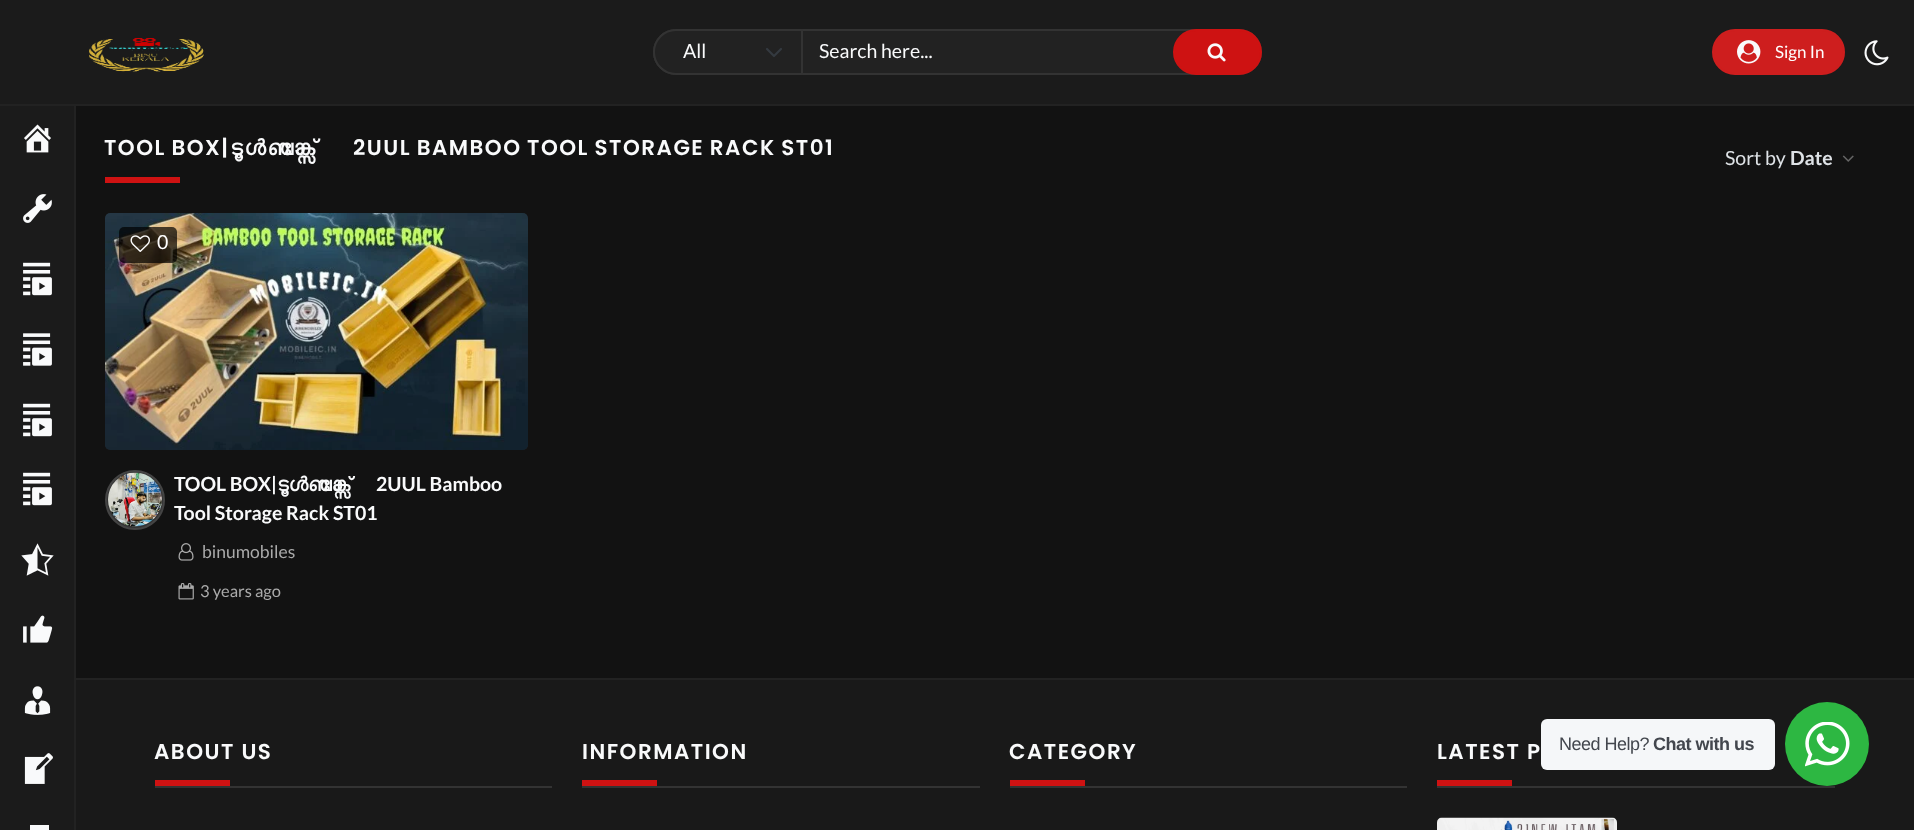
<?xml version="1.0" encoding="UTF-8"?>
<svg xmlns="http://www.w3.org/2000/svg" xmlns:xlink="http://www.w3.org/1999/xlink" width="1914" height="830">
  <rect width="100%" height="100%" fill="#121212" />
  <rect width="1914" height="104" fill="#1b1b1b" />
  <rect x="74" y="105" width="2" height="725" fill="#222222" />
  <rect y="104" width="1914" height="2" fill="#222222" />
  <image x="89" y="38" width="115" height="34" xlink:href="image1.png" />
  <rect x="654" y="30" width="607" height="44" rx="22" fill="#222222" stroke="#333333" stroke-width="2" />
  <path d="M 676 30 h 124 c 0.5 0 1 0.5 1 1 v 42 c 0 0.5 -0.5 1 -1 1 h -124 c -12 0 -22 -10 -22 -22 c 0 -12 10 -22 22 -22 z" fill="#222222" />
  <path d="M 767 49 l 7 7 l 7 -7" fill="none" stroke="#343a40" stroke-width="2.2" stroke-linecap="round" stroke-linejoin="round" />
  <path d="M 676 30 h 125 c 0.5 0 1 0.5 1 1 v 42 c 0 0.5 -0.5 1 -1 1 h -125 c -12 0 -22 -10 -22 -22 c 0 -12 10 -22 22 -22 z" fill="none" stroke="#333333" stroke-width="2" />
  <rect x="1174" y="30" width="87" height="44" rx="22" fill="#ce1212" stroke="#ce1212" stroke-width="2" />
  <image x="1207" y="43" width="19" height="19" xlink:href="image2.png" />
  <rect x="1713" y="30" width="131" height="44" rx="22" fill="#ce1e1e" stroke="#ce1e1e" stroke-width="2" />
  <image x="1737" y="40" width="24" height="24" xlink:href="image3.png" />
  <image x="1864" y="40" width="25" height="26" xlink:href="image4.png" />
  <rect y="106" width="74" height="724" fill="#1b1b1b" />
  <image x="24" y="124" width="27" height="29" xlink:href="image5.png" />
  <image x="23" y="194" width="29" height="29" xlink:href="image6.png" />
  <image x="23" y="262" width="29" height="34" xlink:href="image7.png" />
  <image x="23" y="333" width="29" height="33" xlink:href="image8.png" />
  <image x="23" y="403" width="29" height="34" xlink:href="image7.png" />
  <image x="23" y="472" width="29" height="34" xlink:href="image7.png" />
  <image x="21" y="543" width="33" height="33" xlink:href="image9.png" />
  <image x="23" y="615" width="30" height="28" xlink:href="image10.png" />
  <image x="24" y="686" width="27" height="29" xlink:href="image11.png" />
  <image x="24" y="753" width="29" height="31" xlink:href="image12.png" />
  <rect x="30" y="825" width="19" height="5" fill="#f9fafb" />
  <rect x="105" y="177" width="75" height="6" fill="#ce1212" />
  <image x="1842" y="155" width="12" height="7" xlink:href="image13.png" />
  <rect x="105" y="213" width="423" height="237" rx="5" fill="#212529" />
  <image x="105" y="213" width="423" height="237" xlink:href="image14.png" />
  <rect x="119" y="227" width="58" height="36" rx="5" fill="#000000" fill-opacity="0.7" />
  <image x="130" y="235" width="20" height="17" xlink:href="image15.png" />
  <circle cx="135" cy="500" r="29" fill="#333333" stroke="#444444" stroke-width="2" />
  <image x="108" y="472" width="54" height="55" xlink:href="image16.png" />
  <image x="178" y="543" width="16" height="18" xlink:href="image17.png" />
  <image x="178" y="583" width="16" height="17" xlink:href="image18.png" />
  <rect x="76" y="680" width="1838" height="150" fill="#191919" />
  <rect x="76" y="678" width="1838" height="2" fill="#222222" />
  <rect x="155" y="786" width="397" height="2" fill="#333333" />
  <rect x="155" y="780" width="75" height="6" fill="#ce1212" />
  <rect x="582" y="786" width="398" height="2" fill="#333333" />
  <rect x="582" y="780" width="75" height="6" fill="#ce1212" />
  <rect x="1010" y="786" width="397" height="2" fill="#333333" />
  <rect x="1010" y="780" width="75" height="6" fill="#ce1212" />
  <rect x="1437" y="786" width="398" height="2" fill="#333333" />
  <rect x="1437" y="780" width="75" height="6" fill="#ce1212" />
  <image x="1437" y="817" width="180" height="13" xlink:href="image19.png" />
  <rect x="1541" y="719" width="234" height="51" rx="6" fill="#f5f7f9" />
  <circle cx="1827" cy="744" r="42" fill="#2db742" />
  <image x="1805" y="722" width="45" height="45" xlink:href="image20.png" />
  <text x="683" y="58" style="font-family: Lato; font-size: 19.5px; fill: #f9fafb">All</text>
  <text x="819" y="58" style="font-family: Lato; font-size: 19.5px; fill: #f9fafb">Search here...</text>
  <text x="1775" y="58" style="font-family: Lato; font-size: 17px; fill: #ffffff">Sign In</text>
  <text x="104" y="155" word-spacing="-1" style="font-family: Poppins; font-size: 21.45px; font-weight: 600; letter-spacing: 1.5px; fill: #f9fafb">TOOL BOX|</text>
  <text x="230" y="155" style="font-family: FreeSans; font-size: 21.45px; font-weight: bold; letter-spacing: 1.5px; fill: #f9fafb">ടൂൾബോക്സ്</text>
  <text x="353" y="155" word-spacing="-1" style="font-family: Poppins; font-size: 21.45px; font-weight: 600; letter-spacing: 1.5px; fill: #f9fafb">2UUL BAMBOO TOOL STORAGE RACK ST01</text>
  <text x="1725" y="165" style="font-family: Lato; font-size: 19.5px; fill: #dee2e6">Sort by</text>
  <text x="1790" y="165" style="font-family: Lato; font-size: 19.5px; font-weight: bold; fill: #dee2e6">Date</text>
  <text x="157" y="249" style="font-family: Lato; font-size: 19.5px; fill: #ffffff">0</text>
  <text x="174" y="491" style="font-family: Lato; font-size: 19.5px; font-weight: bold; fill: #f9fafb">TOOL BOX|</text>
  <text x="277" y="491" style="font-family: FreeSans; font-size: 19.5px; font-weight: bold; fill: #f9fafb">ടൂൾബോക്സ്</text>
  <text x="376" y="491" style="font-family: Lato; font-size: 19.5px; font-weight: bold; fill: #f9fafb">2UUL Bamboo</text>
  <text x="174" y="520" style="font-family: Lato; font-size: 19.5px; font-weight: bold; fill: #f9fafb">Tool Storage Rack ST01</text>
  <text x="202" y="558" style="font-family: Lato; font-size: 17.5px; fill: #aaaaaa">binumobiles</text>
  <text x="200" y="597" style="font-family: Lato; font-size: 16.5px; fill: #aaaaaa">3 years ago</text>
  <text x="154" y="759" style="font-family: Poppins; font-size: 21.45px; font-weight: 600; letter-spacing: 1.5px; fill: #f9fafb">ABOUT US</text>
  <text x="582" y="759" style="font-family: Poppins; font-size: 21.45px; font-weight: 600; letter-spacing: 1.5px; fill: #f9fafb">INFORMATION</text>
  <text x="1009" y="759" style="font-family: Poppins; font-size: 21.45px; font-weight: 600; letter-spacing: 1.5px; fill: #f9fafb">CATEGORY</text>
  <text x="1437" y="759" style="font-family: Poppins; font-size: 21.45px; font-weight: 600; letter-spacing: 1.5px; fill: #f9fafb">LATEST P</text>
  <text x="1559" y="750" style="font-family: Liberation Sans; font-size: 18px; letter-spacing: -0.5px; fill: #43474e">Need Help?</text>
  <text x="1653" y="750" style="font-family: Liberation Sans; font-size: 18px; font-weight: bold; letter-spacing: -0.5px; fill: #43474e">Chat with us</text>
</svg>
